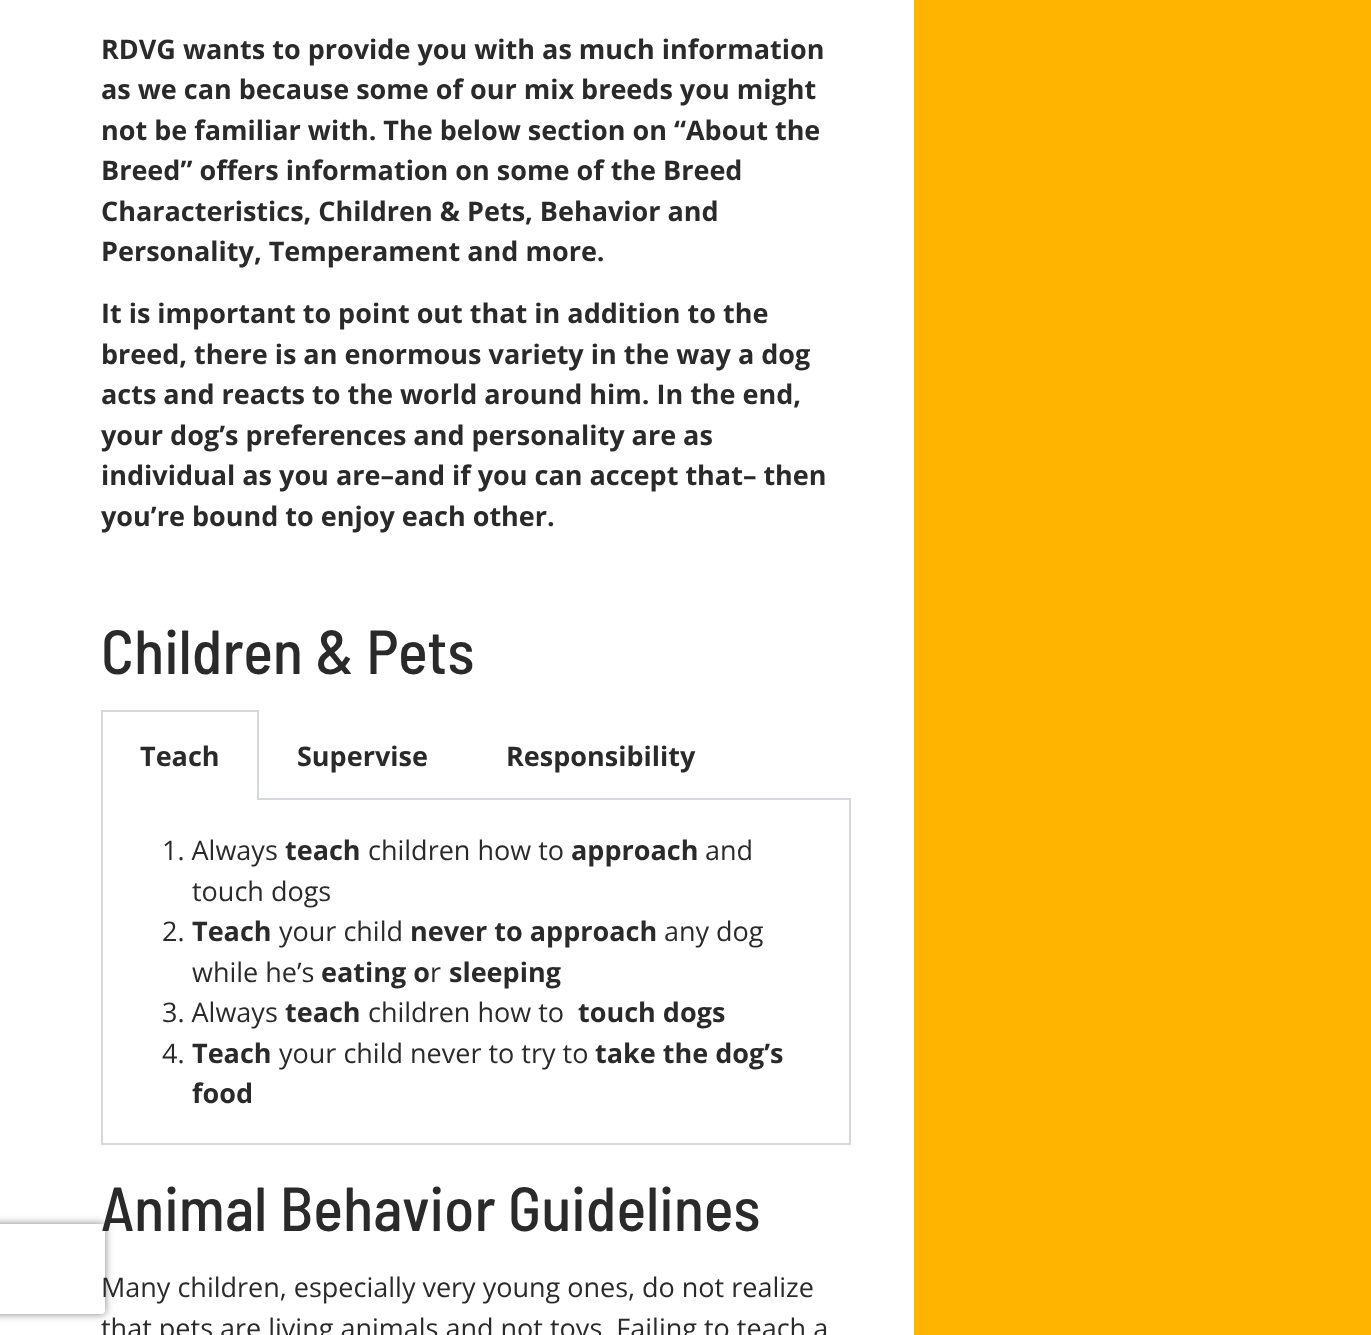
<?xml version="1.0" encoding="UTF-8"?>
<svg xmlns="http://www.w3.org/2000/svg" xmlns:xlink="http://www.w3.org/1999/xlink" width="1371" height="1335">
  <defs>
    <clipPath id="clip1"><path d="M 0 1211 h 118 v 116 h -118 z m -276 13 h 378 c 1.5 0 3 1.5 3 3 v 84 c 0 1.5 -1.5 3 -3 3 h -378 c -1.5 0 -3 -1.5 -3 -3 v -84 c 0 -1.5 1.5 -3 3 -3 z" clip-rule="evenodd" /></clipPath>
  </defs>
  <rect width="100%" height="100%" fill="#ffffff" />
  <rect x="101" y="710" width="157" height="2" fill="#d5d8dc" />
  <rect x="257" y="710" width="2" height="90" fill="#d5d8dc" />
  <rect x="101" y="710" width="2" height="90" fill="#d5d8dc" />
  <rect x="257" y="798" width="594" height="2" fill="#d5d8dc" />
  <rect x="849" y="800" width="2" height="345" fill="#d5d8dc" />
  <rect x="101" y="1143" width="750" height="2" fill="#d5d8dc" />
  <rect x="101" y="800" width="2" height="345" fill="#d5d8dc" />
  <g clip-path="url(#clip1)">
    <rect x="-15" y="1224" width="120" height="90" rx="3" fill="#808080" filter="blur(4px)" />
  </g>
  <rect x="914" width="457" height="1335" fill="#ffb400" />
  <text x="101" y="59" style="font-family: Open Sans; font-size: 27px; font-weight: bold; fill: #2a2a2a">RDVG wants to provide you with as much information</text>
  <text x="101" y="99" style="font-family: Open Sans; font-size: 27px; font-weight: bold; fill: #2a2a2a">as we can because some of our mix breeds you might</text>
  <text x="101" y="140" style="font-family: Open Sans; font-size: 27px; font-weight: bold; fill: #2a2a2a">not be familiar with. The below section on “About the</text>
  <text x="101" y="180" style="font-family: Open Sans; font-size: 27px; font-weight: bold; fill: #2a2a2a">Breed” offers information on some of the Breed</text>
  <text x="101" y="221" style="font-family: Open Sans; font-size: 27px; font-weight: bold; fill: #2a2a2a">Characteristics, Children &amp; Pets, Behavior and</text>
  <text x="101" y="261" style="font-family: Open Sans; font-size: 27px; font-weight: bold; fill: #2a2a2a">Personality, Temperament and more.</text>
  <text x="101" y="323" style="font-family: Open Sans; font-size: 27px; font-weight: bold; fill: #2a2a2a">It is important to point out that in addition to the</text>
  <text x="101" y="364" style="font-family: Open Sans; font-size: 27px; font-weight: bold; fill: #2a2a2a">breed, there is an enormous variety in the way a dog</text>
  <text x="101" y="404" style="font-family: Open Sans; font-size: 27px; font-weight: bold; fill: #2a2a2a">acts and reacts to the world around him. In the end,</text>
  <text x="101" y="445" style="font-family: Open Sans; font-size: 27px; font-weight: bold; fill: #2a2a2a">your dog’s preferences and personality are as</text>
  <text x="101" y="485" style="font-family: Open Sans; font-size: 27px; font-weight: bold; fill: #2a2a2a">individual as you are–and if you can accept that– then</text>
  <text x="101" y="526" style="font-family: Open Sans; font-size: 27px; font-weight: bold; fill: #2a2a2a">you’re bound to enjoy each other.</text>
  <text x="101" y="674" style="font-family: Barlow Semi Condensed; font-size: 62.1px; font-weight: 500; fill: #2a2a2a">Children &amp; Pets</text>
  <text x="140" y="766" style="font-family: Open Sans; font-size: 27px; font-weight: bold; fill: #2a2a2a">Teach</text>
  <text x="297" y="766" style="font-family: Open Sans; font-size: 27px; font-weight: bold; fill: #2a2a2a">Supervise</text>
  <text x="506" y="766" style="font-family: Open Sans; font-size: 27px; font-weight: bold; fill: #2a2a2a">Responsibility</text>
  <text x="162" y="860" style="font-family: Open Sans; font-size: 27px; fill: #2a2a2a">1. Always</text>
  <text x="285" y="860" style="font-family: Open Sans; font-size: 27px; font-weight: bold; fill: #2a2a2a">teach</text>
  <text x="368" y="860" style="font-family: Open Sans; font-size: 27px; fill: #2a2a2a">children how to</text>
  <text x="571" y="860" style="font-family: Open Sans; font-size: 27px; font-weight: bold; fill: #2a2a2a">approach</text>
  <text x="705" y="860" style="font-family: Open Sans; font-size: 27px; fill: #2a2a2a">and</text>
  <text x="192" y="901" style="font-family: Open Sans; font-size: 27px; fill: #2a2a2a">touch dogs</text>
  <text x="162" y="941" style="font-family: Open Sans; font-size: 27px; fill: #2a2a2a">2.</text>
  <text x="192" y="941" style="font-family: Open Sans; font-size: 27px; font-weight: bold; fill: #2a2a2a">Teach</text>
  <text x="279" y="941" style="font-family: Open Sans; font-size: 27px; fill: #2a2a2a">your child</text>
  <text x="410" y="941" style="font-family: Open Sans; font-size: 27px; font-weight: bold; fill: #2a2a2a">never to approach</text>
  <text x="664" y="941" style="font-family: Open Sans; font-size: 27px; fill: #2a2a2a">any dog</text>
  <text x="192" y="982" style="font-family: Open Sans; font-size: 27px; fill: #2a2a2a">while he’s</text>
  <text x="321" y="982" style="font-family: Open Sans; font-size: 27px; font-weight: bold; fill: #2a2a2a">eating o</text>
  <text x="430" y="982" style="font-family: Open Sans; font-size: 27px; fill: #2a2a2a">r</text>
  <text x="449" y="982" style="font-family: Open Sans; font-size: 27px; font-weight: bold; fill: #2a2a2a">sleeping</text>
  <text x="162" y="1022" style="font-family: Open Sans; font-size: 27px; fill: #2a2a2a">3. Always</text>
  <text x="285" y="1022" style="font-family: Open Sans; font-size: 27px; font-weight: bold; fill: #2a2a2a">teach</text>
  <text x="368" y="1022" style="font-family: Open Sans; font-size: 27px; fill: #2a2a2a">children how to</text>
  <text x="578" y="1022" style="font-family: Open Sans; font-size: 27px; font-weight: bold; fill: #2a2a2a">touch dogs</text>
  <text x="162" y="1063" style="font-family: Open Sans; font-size: 27px; fill: #2a2a2a">4.</text>
  <text x="192" y="1063" style="font-family: Open Sans; font-size: 27px; font-weight: bold; fill: #2a2a2a">Teach</text>
  <text x="279" y="1063" style="font-family: Open Sans; font-size: 27px; fill: #2a2a2a">your child never to try to</text>
  <text x="595" y="1063" style="font-family: Open Sans; font-size: 27px; font-weight: bold; fill: #2a2a2a">take the dog’s</text>
  <text x="192" y="1103" style="font-family: Open Sans; font-size: 27px; font-weight: bold; fill: #2a2a2a">food</text>
  <text x="101" y="1231" style="font-family: Barlow Semi Condensed; font-size: 62.1px; font-weight: 500; fill: #2a2a2a">Animal Behavior Guidelines</text>
  <text x="101" y="1297" style="font-family: Open Sans; font-size: 27px; fill: #2a2a2a">Many children, especially very young ones, do not realize</text>
  <text x="101" y="1338" style="font-family: Open Sans; font-size: 27px; fill: #2a2a2a">that pets are living animals and not toys. Failing to teach a</text>
</svg>
